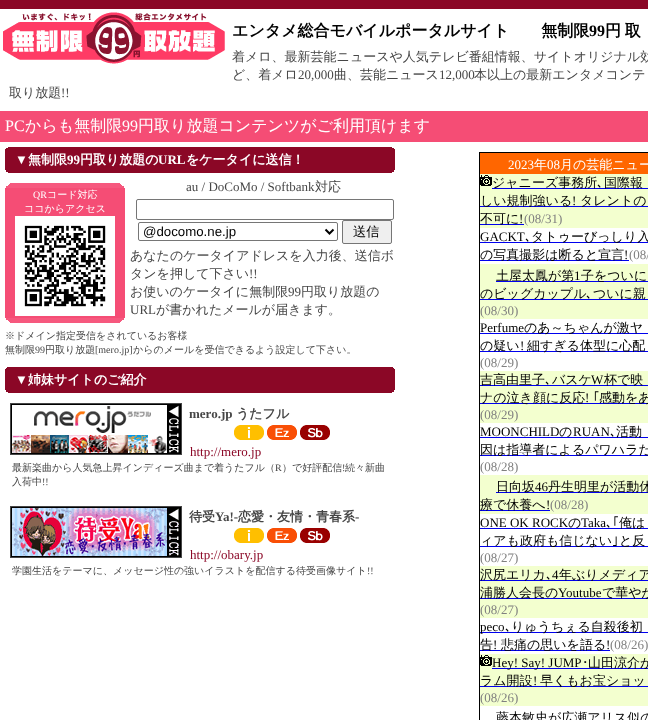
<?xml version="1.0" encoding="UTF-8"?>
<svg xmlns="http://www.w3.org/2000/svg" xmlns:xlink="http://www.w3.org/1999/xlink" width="648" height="720">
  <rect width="100%" height="100%" fill="#ffffff" />
  <rect width="648" height="9" fill="#8b0726" />
  <image x="3" y="12" width="222" height="52" xlink:href="image1.png" />
  <rect y="111" width="648" height="31" fill="#f54d75" />
  <rect x="5" y="151" width="390" height="18" fill="#8b0726" />
  <rect x="8" y="147" width="384" height="1" fill="#8b0726" />
  <rect x="6" y="148" width="388" height="1" fill="#8b0726" />
  <rect x="5" y="149" width="390" height="2" fill="#8b0726" />
  <rect x="5" y="169" width="390" height="1" fill="#8b0726" />
  <rect x="6" y="170" width="388" height="2" fill="#8b0726" />
  <rect x="8" y="172" width="384" height="1" fill="#8b0726" />
  <rect x="5" y="188" width="120" height="130" fill="#f54d75" />
  <rect x="10" y="183" width="110" height="1" fill="#f6587e" />
  <rect x="9" y="184" width="112" height="1" fill="#f6587e" />
  <rect x="8" y="185" width="114" height="1" fill="#f6587e" />
  <rect x="6" y="186" width="118" height="2" fill="#f6587e" />
  <image x="15" y="216" width="100" height="100" xlink:href="image2.png" />
  <rect x="6" y="318" width="118" height="2" fill="#f6587e" />
  <rect x="8" y="320" width="114" height="1" fill="#f6587e" />
  <rect x="9" y="321" width="112" height="1" fill="#f6587e" />
  <rect x="10" y="322" width="110" height="1" fill="#f6587e" />
  <rect x="136.5" y="199.5" width="257" height="20" rx="1.5" fill="none" stroke="#767676" />
  <rect x="138.5" y="222.5" width="199" height="18" rx="1.5" fill="none" stroke="#767676" />
  <path d="M 325.5 229.5 l 4 4 l 4 -4" fill="none" stroke="#000000" stroke-width="2" />
  <rect x="342.5" y="220.5" width="49" height="23" rx="1.5" fill="#efefef" stroke="#767676" />
  <rect x="5" y="371" width="390" height="18" fill="#8b0726" />
  <rect x="7" y="367" width="386" height="1" fill="#8b0726" />
  <rect x="6" y="368" width="388" height="1" fill="#8b0726" />
  <rect x="5" y="369" width="390" height="2" fill="#8b0726" />
  <rect x="5" y="389" width="390" height="1" fill="#8b0726" />
  <rect x="6" y="390" width="388" height="2" fill="#8b0726" />
  <rect x="8" y="392" width="384" height="1" fill="#8b0726" />
  <rect x="10.5" y="403.5" width="171" height="51" fill="none" stroke="#464646" />
  <image x="11" y="404" width="170" height="50" xlink:href="image3.png" />
  <image x="234" y="425" width="30" height="15" xlink:href="image4.png" />
  <image x="267" y="425" width="30" height="15" xlink:href="image5.png" />
  <image x="300" y="425" width="30" height="15" xlink:href="image6.png" />
  <rect x="10.5" y="506.5" width="171" height="51" fill="none" stroke="#464646" />
  <image x="11" y="507" width="170" height="50" xlink:href="image7.png" />
  <image x="234" y="528" width="30" height="15" xlink:href="image4.png" />
  <image x="267" y="528" width="30" height="15" xlink:href="image5.png" />
  <image x="300" y="528" width="30" height="15" xlink:href="image6.png" />
  <rect x="479.5" y="152.5" width="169" height="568" fill="none" stroke="#000000" />
  <rect x="480" y="153" width="168" height="21" fill="#ff6600" />
  <rect x="480" y="174" width="168" height="54" fill="#f3ffcf" />
  <image x="480" y="175" width="12" height="11" xlink:href="image8.png" />
  <rect x="492" y="188" width="156" height="1" fill="#0000ee" />
  <rect x="480" y="206" width="168" height="1" fill="#0000ee" />
  <rect x="480" y="224" width="44" height="1" fill="#0000ee" />
  <rect x="480" y="242" width="168" height="1" fill="#0000ee" />
  <rect x="480" y="260" width="149" height="1" fill="#0000ee" />
  <rect x="480" y="264" width="168" height="55" fill="#f3ffcf" />
  <rect x="496" y="281" width="152" height="1" fill="#0000ee" />
  <rect x="480" y="299" width="168" height="1" fill="#0000ee" />
  <rect x="480" y="333" width="168" height="1" fill="#0000ee" />
  <rect x="480" y="351" width="168" height="1" fill="#0000ee" />
  <rect x="480" y="371" width="168" height="52" fill="#f3ffcf" />
  <rect x="480" y="385" width="168" height="1" fill="#0000ee" />
  <rect x="480" y="403" width="168" height="1" fill="#0000ee" />
  <rect x="480" y="437" width="168" height="1" fill="#0000ee" />
  <rect x="480" y="455" width="168" height="1" fill="#0000ee" />
  <rect x="480" y="475" width="168" height="39" fill="#f3ffcf" />
  <rect x="496" y="492" width="152" height="1" fill="#0000ee" />
  <rect x="480" y="510" width="70" height="1" fill="#0000ee" />
  <rect x="480" y="528" width="168" height="1" fill="#0000ee" />
  <rect x="480" y="546" width="168" height="1" fill="#0000ee" />
  <rect x="480" y="566" width="168" height="52" fill="#f3ffcf" />
  <rect x="480" y="580" width="168" height="1" fill="#0000ee" />
  <rect x="480" y="598" width="168" height="1" fill="#0000ee" />
  <rect x="480" y="632" width="168" height="1" fill="#0000ee" />
  <rect x="480" y="650" width="130" height="1" fill="#0000ee" />
  <rect x="480" y="654" width="168" height="52" fill="#f3ffcf" />
  <image x="480" y="655" width="12" height="11" xlink:href="image8.png" />
  <rect x="492" y="668" width="156" height="1" fill="#0000ee" />
  <rect x="480" y="686" width="168" height="1" fill="#0000ee" />
  <text x="232" y="36" style="font-family: WenQuanYi Zen Hei; font-size: 16px; font-weight: bold; fill: #000000">エンタメ総合モバイルポータルサイト　　無制限</text>
  <text x="589" y="36" style="font-family: Liberation Serif; font-size: 16px; font-weight: bold; fill: #000000">99</text>
  <text x="605" y="36" word-spacing="-1" style="font-family: WenQuanYi Zen Hei; font-size: 16px; font-weight: bold; fill: #000000">円 取</text>
  <text x="232" y="61" style="font-family: WenQuanYi Zen Hei; font-size: 13px; font-weight: 500; fill: #464646">着メロ、最新芸能ニュースや人気テレビ番組情報、サイトオリジナル効</text>
  <text x="232" y="79" style="font-family: WenQuanYi Zen Hei; font-size: 13px; font-weight: 500; fill: #464646">ど、着メロ</text>
  <text x="298" y="79" style="font-family: Liberation Serif; font-size: 13px; fill: #464646">20,000</text>
  <text x="334" y="79" style="font-family: WenQuanYi Zen Hei; font-size: 13px; font-weight: 500; fill: #464646">曲、芸能ニュース</text>
  <text x="439" y="79" style="font-family: Liberation Serif; font-size: 13px; fill: #464646">12,000</text>
  <text x="474" y="79" style="font-family: WenQuanYi Zen Hei; font-size: 13px; font-weight: 500; fill: #464646">本以上の最新エンタメコンテ</text>
  <text x="9" y="97" style="font-family: WenQuanYi Zen Hei; font-size: 13px; font-weight: 500; fill: #464646">取り放題</text>
  <text x="61" y="97" style="font-family: Liberation Serif; font-size: 13px; fill: #464646">!!</text>
  <text x="5" y="131" style="font-family: Liberation Serif; font-size: 16px; fill: #ffffff">PC</text>
  <text x="25" y="131" style="font-family: WenQuanYi Zen Hei; font-size: 16px; font-weight: 500; fill: #ffffff">からも無制限</text>
  <text x="122" y="131" style="font-family: Liberation Serif; font-size: 16px; fill: #ffffff">99</text>
  <text x="138" y="131" style="font-family: WenQuanYi Zen Hei; font-size: 16px; font-weight: 500; fill: #ffffff">円取り放題コンテンツがご利用頂けます</text>
  <text x="15" y="164" style="font-family: Liberation Serif; font-size: 13px; font-weight: bold; fill: #ffffff">▼</text>
  <text x="28" y="164" style="font-family: WenQuanYi Zen Hei; font-size: 13px; font-weight: bold; fill: #ffffff">無制限</text>
  <text x="67" y="164" style="font-family: Liberation Serif; font-size: 13px; font-weight: bold; fill: #ffffff">99</text>
  <text x="80" y="164" style="font-family: WenQuanYi Zen Hei; font-size: 13px; font-weight: bold; fill: #ffffff">円取り放題の</text>
  <text x="158" y="164" style="font-family: Liberation Serif; font-size: 13px; font-weight: bold; fill: #ffffff">URL</text>
  <text x="186" y="164" style="font-family: WenQuanYi Zen Hei; font-size: 13px; font-weight: bold; fill: #ffffff">をケータイに送信！</text>
  <text x="33" y="198" style="font-family: Liberation Serif; font-size: 10px; fill: #ffffff">QR</text>
  <text x="47" y="198" style="font-family: WenQuanYi Zen Hei; font-size: 10px; font-weight: 500; fill: #ffffff">コード対応</text>
  <text x="24" y="212" style="font-family: WenQuanYi Zen Hei; font-size: 10px; font-weight: 500; fill: #ffffff">ココからアクセス</text>
  <text x="186" y="191" style="font-family: Liberation Serif; font-size: 13px; fill: #464646">au / DoCoMo / Softbank</text>
  <text x="315" y="191" style="font-family: WenQuanYi Zen Hei; font-size: 13px; font-weight: 500; fill: #464646">対応</text>
  <text x="143" y="236" style="font-family: Liberation Sans; font-size: 13.25px; fill: #000000">@docomo.ne.jp</text>
  <text x="353" y="236" style="font-family: WenQuanYi Zen Hei; font-size: 13.25px; font-weight: 500; fill: #000000">送信</text>
  <text x="130" y="260" style="font-family: WenQuanYi Zen Hei; font-size: 13px; font-weight: 500; fill: #464646">あなたのケータイアドレスを入力後、送信ボ</text>
  <text x="130" y="278" style="font-family: WenQuanYi Zen Hei; font-size: 13px; font-weight: 500; fill: #464646">タンを押して下さい</text>
  <text x="249" y="278" style="font-family: Liberation Serif; font-size: 13px; fill: #464646">!!</text>
  <text x="130" y="296" style="font-family: WenQuanYi Zen Hei; font-size: 13px; font-weight: 500; fill: #464646">お使いのケータイに無制限</text>
  <text x="288" y="296" style="font-family: Liberation Serif; font-size: 13px; fill: #464646">99</text>
  <text x="301" y="296" style="font-family: WenQuanYi Zen Hei; font-size: 13px; font-weight: 500; fill: #464646">円取り放題の</text>
  <text x="130" y="314" style="font-family: Liberation Serif; font-size: 13px; fill: #464646">URL</text>
  <text x="156" y="314" style="font-family: WenQuanYi Zen Hei; font-size: 13px; font-weight: 500; fill: #464646">が書かれたメールが届きます。</text>
  <text x="5" y="339" style="font-family: WenQuanYi Zen Hei; font-size: 10px; font-weight: 500; fill: #464646">※ドメイン指定受信をされているお客様</text>
  <text x="5" y="353" style="font-family: WenQuanYi Zen Hei; font-size: 10px; font-weight: 500; fill: #464646">無制限</text>
  <text x="35" y="353" style="font-family: Liberation Serif; font-size: 10px; fill: #464646">99</text>
  <text x="45" y="353" style="font-family: WenQuanYi Zen Hei; font-size: 10px; font-weight: 500; fill: #464646">円取り放題</text>
  <text x="95" y="353" style="font-family: Liberation Serif; font-size: 10px; fill: #464646">[mero.jp]</text>
  <text x="133" y="353" style="font-family: WenQuanYi Zen Hei; font-size: 10px; font-weight: 500; fill: #464646">からのメールを受信できるよう設定して下さい。</text>
  <text x="15" y="384" style="font-family: Liberation Serif; font-size: 13px; font-weight: bold; fill: #ffffff">▼</text>
  <text x="28" y="384" style="font-family: WenQuanYi Zen Hei; font-size: 13px; font-weight: bold; fill: #ffffff">姉妹サイトのご紹介</text>
  <text x="189" y="418" style="font-family: Liberation Serif; font-size: 13px; font-weight: bold; fill: #464646">mero.jp</text>
  <text x="236" y="418" style="font-family: WenQuanYi Zen Hei; font-size: 13px; font-weight: bold; fill: #464646">うたフル</text>
  <text x="190" y="456" style="font-family: Liberation Serif; font-size: 13px; fill: #8b0726">http://mero.jp</text>
  <text x="12" y="471" style="font-family: WenQuanYi Zen Hei; font-size: 10px; font-weight: 500; fill: #464646">最新楽曲から人気急上昇インディーズ曲まで着うたフル（</text>
  <text x="275" y="471" style="font-family: Liberation Serif; font-size: 10px; fill: #464646">R</text>
  <text x="282" y="471" style="font-family: WenQuanYi Zen Hei; font-size: 10px; font-weight: 500; fill: #464646">）で好評配信</text>
  <text x="342" y="471" style="font-family: Liberation Serif; font-size: 10px; fill: #464646">!</text>
  <text x="345" y="471" style="font-family: WenQuanYi Zen Hei; font-size: 10px; font-weight: 500; fill: #464646">続々新曲</text>
  <text x="12" y="485" style="font-family: WenQuanYi Zen Hei; font-size: 10px; font-weight: 500; fill: #464646">入荷中</text>
  <text x="42" y="485" style="font-family: Liberation Serif; font-size: 10px; fill: #464646">!!</text>
  <text x="189" y="521" style="font-family: WenQuanYi Zen Hei; font-size: 13px; font-weight: bold; fill: #464646">待受</text>
  <text x="215" y="521" style="font-family: Liberation Serif; font-size: 13px; font-weight: bold; fill: #464646">Ya!-</text>
  <text x="238" y="521" style="font-family: WenQuanYi Zen Hei; font-size: 13px; font-weight: bold; fill: #464646">恋愛・友情・青春系</text>
  <text x="355" y="521" style="font-family: Liberation Serif; font-size: 13px; font-weight: bold; fill: #464646">-</text>
  <text x="190" y="559" style="font-family: Liberation Serif; font-size: 13px; fill: #8b0726">http://obary.jp</text>
  <text x="12" y="574" style="font-family: WenQuanYi Zen Hei; font-size: 10px; font-weight: 500; fill: #464646">学園生活をテーマに、メッセージ性の強いイラストを配信する待受画像サイト</text>
  <text x="367" y="574" style="font-family: Liberation Serif; font-size: 10px; fill: #464646">!!</text>
  <text x="508" y="169" style="font-family: Liberation Serif; font-size: 13px; fill: #ffffff">2023</text>
  <text x="534" y="169" style="font-family: WenQuanYi Zen Hei; font-size: 13px; font-weight: 500; fill: #ffffff">年</text>
  <text x="547" y="169" style="font-family: Liberation Serif; font-size: 13px; fill: #ffffff">08</text>
  <text x="560" y="169" style="font-family: WenQuanYi Zen Hei; font-size: 13px; font-weight: 500; fill: #ffffff">月の芸能ニュー</text>
  <text x="492" y="187" style="font-family: WenQuanYi Zen Hei; font-size: 13px; font-weight: 500; fill: #000000">ジャニーズ事務所</text>
  <text x="597" y="187" style="font-family: IPAPGothic; font-size: 13px; fill: #000000">､</text>
  <text x="604" y="187" style="font-family: WenQuanYi Zen Hei; font-size: 13px; font-weight: 500; fill: #000000">国際報</text>
  <text x="480" y="205" style="font-family: WenQuanYi Zen Hei; font-size: 13px; font-weight: 500; fill: #000000">しい規制強いる</text>
  <text x="572" y="205" style="font-family: Liberation Serif; font-size: 13px; fill: #000000">!</text>
  <text x="580" y="205" style="font-family: WenQuanYi Zen Hei; font-size: 13px; font-weight: 500; fill: #000000">タレントの</text>
  <text x="480" y="223" style="font-family: WenQuanYi Zen Hei; font-size: 13px; font-weight: 500; fill: #000000">不可に</text>
  <text x="519" y="223" style="font-family: Liberation Serif; font-size: 13px; fill: #000000">!</text>
  <text x="524" y="223" style="font-family: Liberation Serif; font-size: 13px; fill: #808080">(08/31)</text>
  <text x="480" y="241" style="font-family: Liberation Serif; font-size: 13px; fill: #000000">GACKT</text>
  <text x="525" y="241" style="font-family: IPAPGothic; font-size: 13px; fill: #000000">､</text>
  <text x="531" y="241" style="font-family: WenQuanYi Zen Hei; font-size: 13px; font-weight: 500; fill: #000000">タトゥーびっしり入</text>
  <text x="480" y="259" style="font-family: WenQuanYi Zen Hei; font-size: 13px; font-weight: 500; fill: #000000">の写真撮影は断ると宣言</text>
  <text x="624" y="259" style="font-family: Liberation Serif; font-size: 13px; fill: #000000">!</text>
  <text x="629" y="259" style="font-family: Liberation Serif; font-size: 13px; fill: #808080">(08/</text>
  <text x="496" y="280" style="font-family: WenQuanYi Zen Hei; font-size: 13px; font-weight: 500; fill: #000000">土屋太鳳が第</text>
  <text x="574" y="280" style="font-family: Liberation Serif; font-size: 13px; fill: #000000">1</text>
  <text x="581" y="280" style="font-family: WenQuanYi Zen Hei; font-size: 13px; font-weight: 500; fill: #000000">子をついに</text>
  <text x="480" y="298" style="font-family: WenQuanYi Zen Hei; font-size: 13px; font-weight: 500; fill: #000000">のビッグカップル</text>
  <text x="586" y="298" style="font-family: IPAPGothic; font-size: 13px; fill: #000000">､</text>
  <text x="593" y="298" style="font-family: WenQuanYi Zen Hei; font-size: 13px; font-weight: 500; fill: #000000">ついに親</text>
  <text x="480" y="315" style="font-family: Liberation Serif; font-size: 13px; fill: #808080">(08/30)</text>
  <text x="480" y="332" style="font-family: Liberation Serif; font-size: 13px; fill: #000000">Perfume</text>
  <text x="524" y="332" style="font-family: WenQuanYi Zen Hei; font-size: 13px; font-weight: 500; fill: #000000">のあ～ちゃんが激ヤ</text>
  <text x="480" y="350" style="font-family: WenQuanYi Zen Hei; font-size: 13px; font-weight: 500; fill: #000000">の疑い</text>
  <text x="520" y="350" style="font-family: Liberation Serif; font-size: 13px; fill: #000000">!</text>
  <text x="527" y="350" style="font-family: WenQuanYi Zen Hei; font-size: 13px; font-weight: 500; fill: #000000">細すぎる体型に心配</text>
  <text x="480" y="367" style="font-family: Liberation Serif; font-size: 13px; fill: #808080">(08/29)</text>
  <text x="480" y="384" style="font-family: WenQuanYi Zen Hei; font-size: 13px; font-weight: 500; fill: #000000">吉高由里子</text>
  <text x="545" y="384" style="font-family: IPAPGothic; font-size: 13px; fill: #000000">､</text>
  <text x="552" y="384" style="font-family: WenQuanYi Zen Hei; font-size: 13px; font-weight: 500; fill: #000000">バスケ</text>
  <text x="591" y="384" style="font-family: Liberation Serif; font-size: 13px; fill: #000000">W</text>
  <text x="604" y="384" style="font-family: WenQuanYi Zen Hei; font-size: 13px; font-weight: 500; fill: #000000">杯で映</text>
  <text x="480" y="402" style="font-family: WenQuanYi Zen Hei; font-size: 13px; font-weight: 500; fill: #000000">ナの泣き顔に反応</text>
  <text x="585" y="402" style="font-family: Liberation Serif; font-size: 13px; fill: #000000">!</text>
  <text x="593" y="402" style="font-family: IPAPGothic; font-size: 13px; fill: #000000">｢</text>
  <text x="599" y="402" style="font-family: WenQuanYi Zen Hei; font-size: 13px; font-weight: 500; fill: #000000">感動をあ</text>
  <text x="480" y="419" style="font-family: Liberation Serif; font-size: 13px; fill: #808080">(08/29)</text>
  <text x="480" y="436" style="font-family: Liberation Serif; font-size: 13px; fill: #000000">MOONCHILD</text>
  <text x="559" y="436" style="font-family: WenQuanYi Zen Hei; font-size: 13px; font-weight: 500; fill: #000000">の</text>
  <text x="573" y="436" style="font-family: Liberation Serif; font-size: 13px; fill: #000000">RUAN</text>
  <text x="610" y="436" style="font-family: IPAPGothic; font-size: 13px; fill: #000000">､</text>
  <text x="616" y="436" style="font-family: WenQuanYi Zen Hei; font-size: 13px; font-weight: 500; fill: #000000">活動</text>
  <text x="480" y="454" style="font-family: WenQuanYi Zen Hei; font-size: 13px; font-weight: 500; fill: #000000">因は指導者によるパワハラだ</text>
  <text x="480" y="471" style="font-family: Liberation Serif; font-size: 13px; fill: #808080">(08/28)</text>
  <text x="496" y="491" style="font-family: WenQuanYi Zen Hei; font-size: 13px; font-weight: 500; fill: #000000">日向坂</text>
  <text x="535" y="491" style="font-family: Liberation Serif; font-size: 13px; fill: #000000">46</text>
  <text x="548" y="491" style="font-family: WenQuanYi Zen Hei; font-size: 13px; font-weight: 500; fill: #000000">丹生明里が活動休</text>
  <text x="480" y="509" style="font-family: WenQuanYi Zen Hei; font-size: 13px; font-weight: 500; fill: #000000">療で休養へ</text>
  <text x="546" y="509" style="font-family: Liberation Serif; font-size: 13px; fill: #000000">!</text>
  <text x="550" y="509" style="font-family: Liberation Serif; font-size: 13px; fill: #808080">(08/28)</text>
  <text x="480" y="527" style="font-family: Liberation Serif; font-size: 13px; fill: #000000">ONE OK ROCK</text>
  <text x="568" y="527" style="font-family: WenQuanYi Zen Hei; font-size: 13px; font-weight: 500; fill: #000000">の</text>
  <text x="581" y="527" style="font-family: Liberation Serif; font-size: 13px; fill: #000000">Taka</text>
  <text x="606" y="527" style="font-family: IPAPGothic; font-size: 13px; fill: #000000">､｢</text>
  <text x="619" y="527" style="font-family: WenQuanYi Zen Hei; font-size: 13px; font-weight: 500; fill: #000000">俺は</text>
  <text x="480" y="545" style="font-family: WenQuanYi Zen Hei; font-size: 13px; font-weight: 500; fill: #000000">ィアも政府も信じない</text>
  <text x="612" y="545" style="font-family: IPAPGothic; font-size: 13px; fill: #000000">｣</text>
  <text x="619" y="545" style="font-family: WenQuanYi Zen Hei; font-size: 13px; font-weight: 500; fill: #000000">と反</text>
  <text x="480" y="562" style="font-family: Liberation Serif; font-size: 13px; fill: #808080">(08/27)</text>
  <text x="480" y="579" style="font-family: WenQuanYi Zen Hei; font-size: 13px; font-weight: 500; fill: #000000">沢尻エリカ</text>
  <text x="546" y="579" style="font-family: IPAPGothic; font-size: 13px; fill: #000000">､</text>
  <text x="552" y="579" style="font-family: Liberation Serif; font-size: 13px; fill: #000000">4</text>
  <text x="559" y="579" style="font-family: WenQuanYi Zen Hei; font-size: 13px; font-weight: 500; fill: #000000">年ぶりメディア</text>
  <text x="480" y="597" style="font-family: WenQuanYi Zen Hei; font-size: 13px; font-weight: 500; fill: #000000">浦勝人会長の</text>
  <text x="558" y="597" style="font-family: Liberation Serif; font-size: 13px; fill: #000000">Youtube</text>
  <text x="602" y="597" style="font-family: WenQuanYi Zen Hei; font-size: 13px; font-weight: 500; fill: #000000">で華やか</text>
  <text x="480" y="614" style="font-family: Liberation Serif; font-size: 13px; fill: #808080">(08/27)</text>
  <text x="480" y="631" style="font-family: Liberation Serif; font-size: 13px; fill: #000000">peco</text>
  <text x="505" y="631" style="font-family: IPAPGothic; font-size: 13px; fill: #000000">､</text>
  <text x="511" y="631" style="font-family: WenQuanYi Zen Hei; font-size: 13px; font-weight: 500; fill: #000000">りゅうちぇる自殺後初</text>
  <text x="480" y="649" style="font-family: WenQuanYi Zen Hei; font-size: 13px; font-weight: 500; fill: #000000">告</text>
  <text x="493" y="649" style="font-family: Liberation Serif; font-size: 13px; fill: #000000">!</text>
  <text x="501" y="649" style="font-family: WenQuanYi Zen Hei; font-size: 13px; font-weight: 500; fill: #000000">悲痛の思いを語る</text>
  <text x="606" y="649" style="font-family: Liberation Serif; font-size: 13px; fill: #000000">!</text>
  <text x="610" y="649" style="font-family: Liberation Serif; font-size: 13px; fill: #808080">(08/26)</text>
  <text x="492" y="667" style="font-family: Liberation Serif; font-size: 13px; fill: #000000">Hey! Say! JUMP</text>
  <text x="582" y="667" style="font-family: IPAPGothic; font-size: 13px; fill: #000000">･</text>
  <text x="588" y="667" style="font-family: WenQuanYi Zen Hei; font-size: 13px; font-weight: 500; fill: #000000">山田涼介が</text>
  <text x="480" y="685" style="font-family: WenQuanYi Zen Hei; font-size: 13px; font-weight: 500; fill: #000000">ラム開設</text>
  <text x="533" y="685" style="font-family: Liberation Serif; font-size: 13px; fill: #000000">!</text>
  <text x="540" y="685" style="font-family: WenQuanYi Zen Hei; font-size: 13px; font-weight: 500; fill: #000000">早くもお宝ショッ</text>
  <text x="480" y="702" style="font-family: Liberation Serif; font-size: 13px; fill: #808080">(08/26)</text>
  <text x="496" y="722" style="font-family: WenQuanYi Zen Hei; font-size: 13px; font-weight: 500; fill: #000000">藤本敏史が広瀬アリス似の</text>
</svg>
